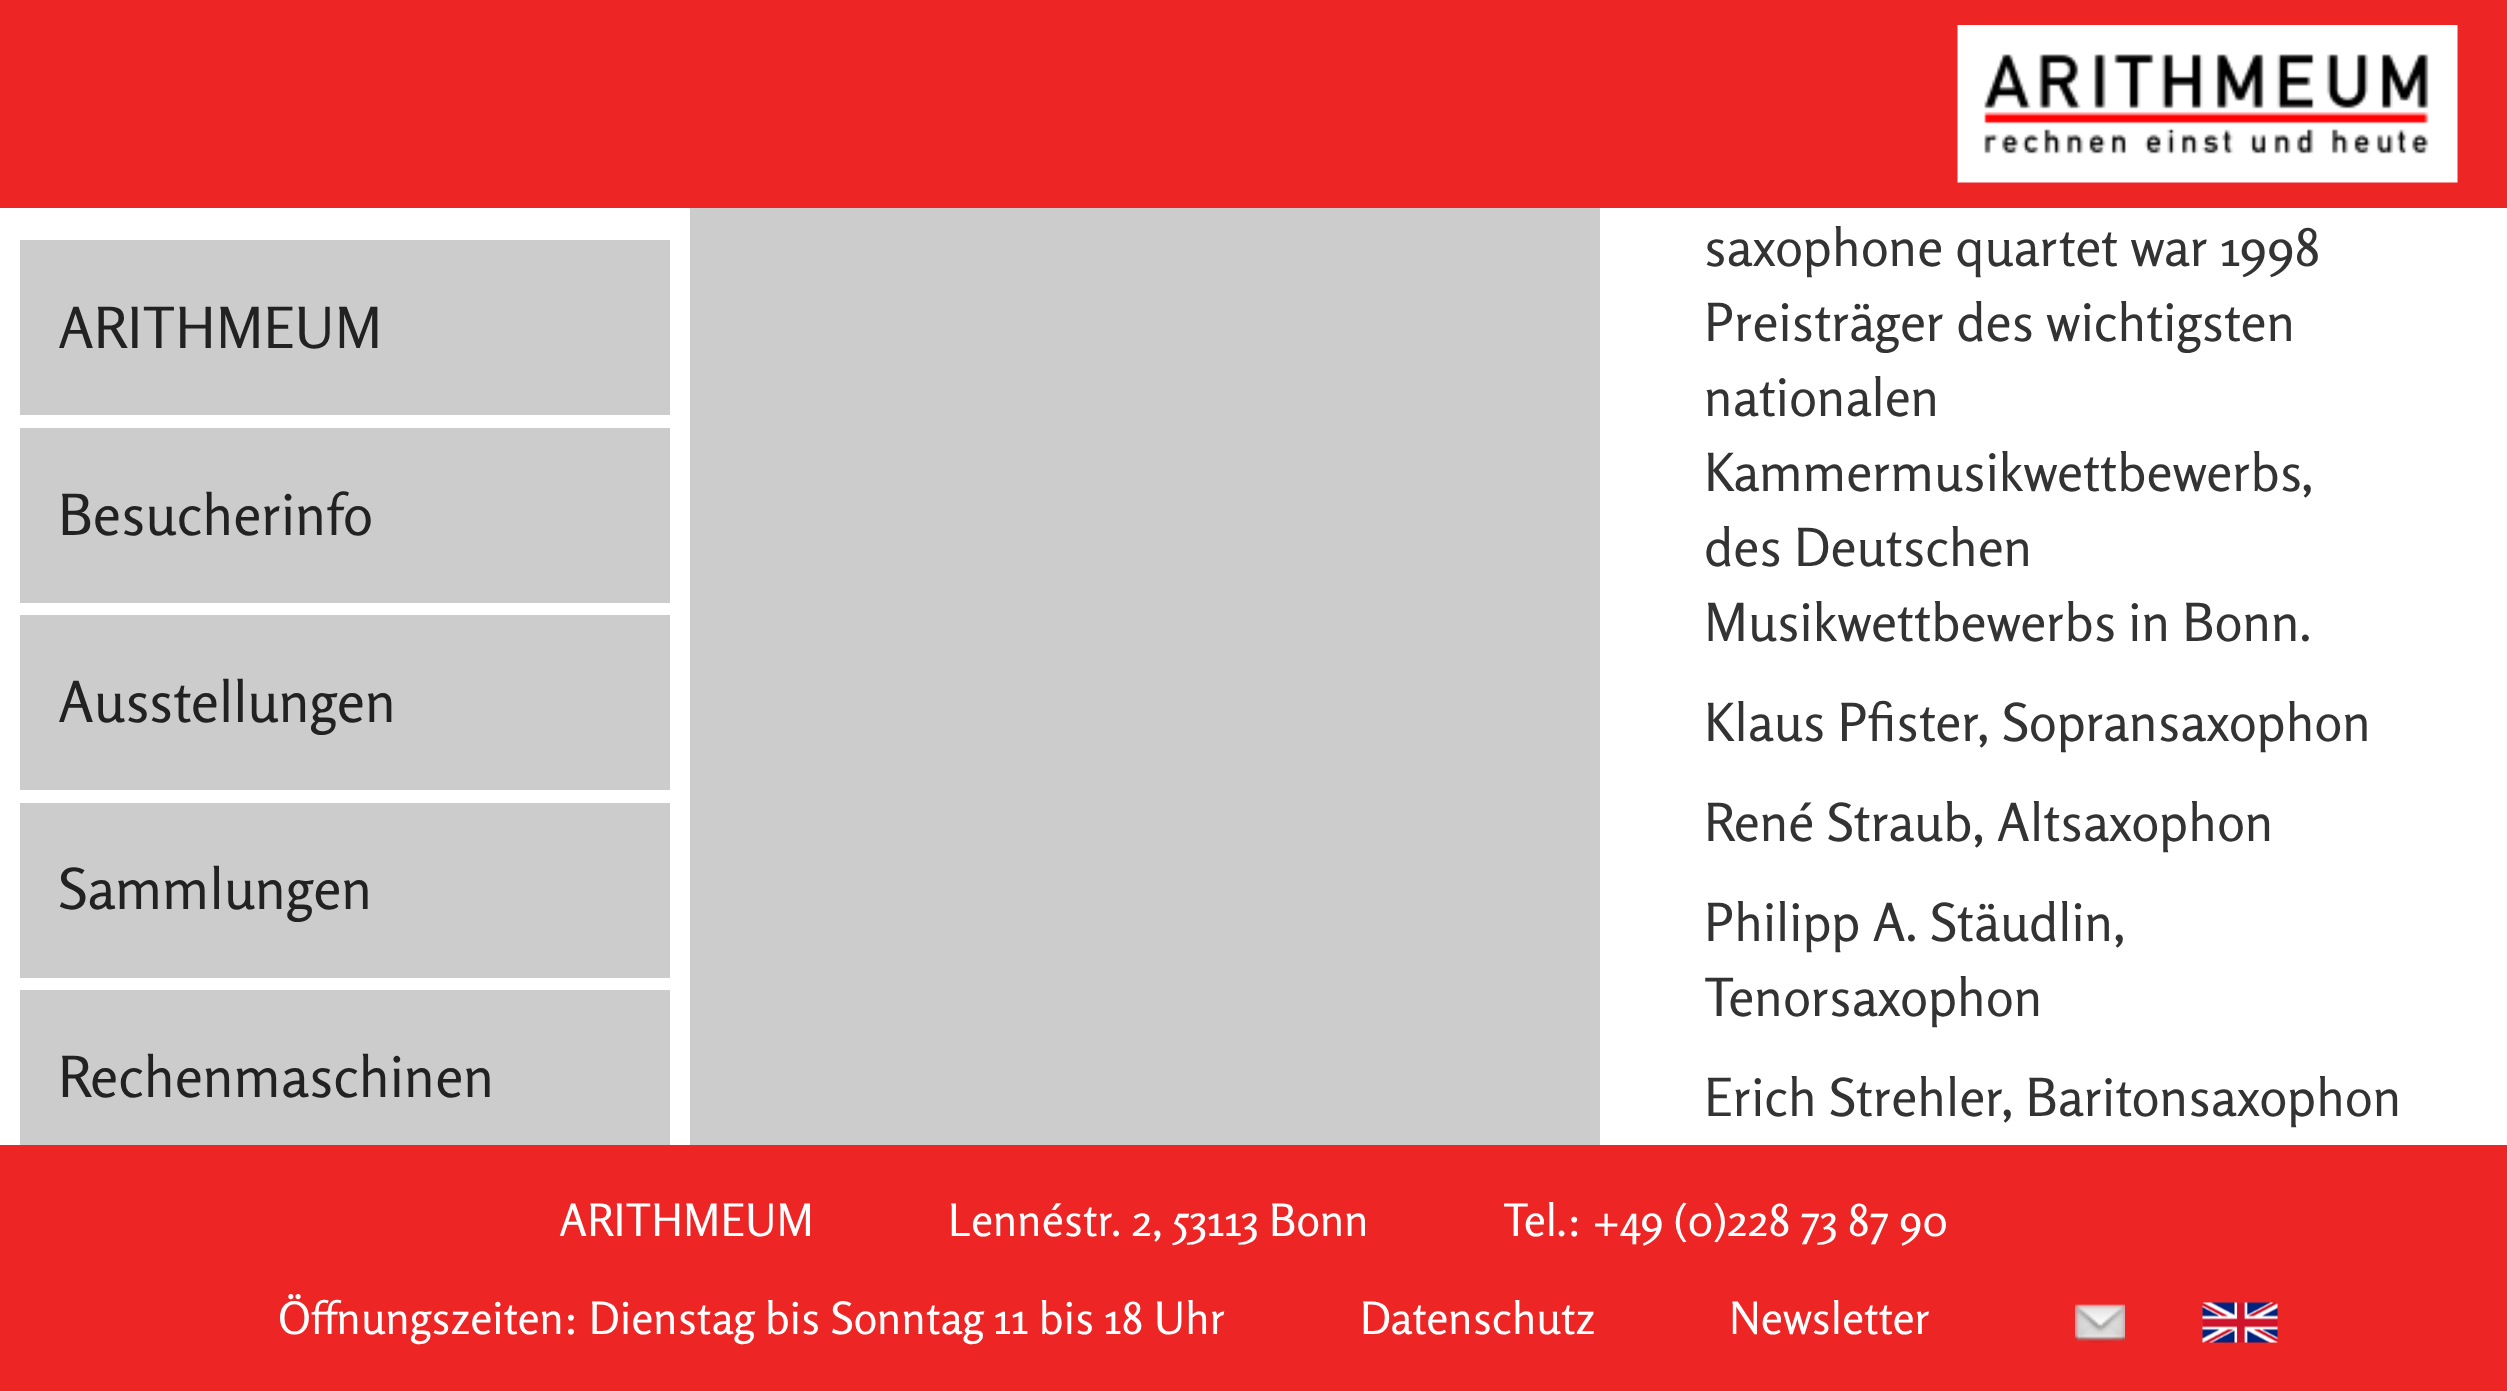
<?xml version="1.0" encoding="UTF-8"?>
<svg xmlns="http://www.w3.org/2000/svg" xmlns:xlink="http://www.w3.org/1999/xlink" width="2507" height="1391">
  <rect width="100%" height="100%" fill="#ffffff" />
  <rect x="690" y="208" width="910" height="937" fill="#cccccc" />
  <rect width="2507" height="208" fill="#ee2525" />
  <image x="1957" y="25" width="501" height="158" xlink:href="image1.png" />
  <rect x="20" y="240" width="650" height="175" fill="#cccccc" />
  <rect x="20" y="428" width="650" height="175" fill="#cccccc" />
  <rect x="20" y="615" width="650" height="175" fill="#cccccc" />
  <rect x="20" y="803" width="650" height="175" fill="#cccccc" />
  <rect x="20" y="990" width="650" height="155" fill="#cccccc" />
  <rect y="1145" width="2507" height="246" fill="#ee2525" />
  <image x="2075" y="1304" width="50" height="39" xlink:href="image2.png" />
  <image x="2202" y="1302" width="76" height="41" xlink:href="image3.png" />
  <text x="58" y="348" style="font-family: Rosario; font-size: 56.75px; fill: #222222">ARITHMEUM</text>
  <text x="58" y="535" style="font-family: Rosario; font-size: 56.75px; fill: #222222">Besucherinfo</text>
  <text x="58" y="722" style="font-family: Rosario; font-size: 56.75px; fill: #222222">Ausstellungen</text>
  <text x="58" y="909" style="font-family: Rosario; font-size: 56.75px; fill: #222222">Sammlungen</text>
  <text x="58" y="1097" style="font-family: Rosario; font-size: 56.75px; fill: #222222">Rechenmaschinen</text>
  <text x="1704" y="266" style="font-family: Rosario; font-size: 52.5px; fill: #333333">saxophone quartet war 1998</text>
  <text x="1704" y="341" style="font-family: Rosario; font-size: 52.5px; fill: #333333">Preisträger des wichtigsten</text>
  <text x="1704" y="416" style="font-family: Rosario; font-size: 52.5px; fill: #333333">nationalen</text>
  <text x="1704" y="491" style="font-family: Rosario; font-size: 52.5px; fill: #333333">Kammermusikwettbewerbs,</text>
  <text x="1704" y="566" style="font-family: Rosario; font-size: 52.5px; fill: #333333">des Deutschen</text>
  <text x="1704" y="641" style="font-family: Rosario; font-size: 52.5px; fill: #333333">Musikwettbewerbs in Bonn.</text>
  <text x="1704" y="741" style="font-family: Rosario; font-size: 52.5px; fill: #333333">Klaus Pfister, Sopransaxophon</text>
  <text x="1704" y="841" style="font-family: Rosario; font-size: 52.5px; fill: #333333">René Straub, Altsaxophon</text>
  <text x="1704" y="941" style="font-family: Rosario; font-size: 52.5px; fill: #333333">Philipp A. Stäudlin,</text>
  <text x="1704" y="1016" style="font-family: Rosario; font-size: 52.5px; fill: #333333">Tenorsaxophon</text>
  <text x="1704" y="1116" style="font-family: Rosario; font-size: 52.5px; fill: #333333">Erich Strehler, Baritonsaxophon</text>
  <text x="559" y="1236" style="font-family: Rosario; font-size: 44.6px; fill: #ffffff">ARITHMEUM</text>
  <text x="948" y="1236" style="font-family: Rosario; font-size: 44.6px; fill: #ffffff">Lennéstr. 2, 53113 Bonn</text>
  <text x="1503" y="1236" style="font-family: Rosario; font-size: 44.6px; fill: #ffffff">Tel.: +49 (0)228 73 87 90</text>
  <text x="278" y="1334" style="font-family: Rosario; font-size: 44.6px; fill: #ffffff">Öffnungszeiten: Dienstag bis Sonntag 11 bis 18 Uhr</text>
  <text x="1360" y="1334" style="font-family: Rosario; font-size: 44.6px; fill: #ffffff">Datenschutz</text>
  <text x="1729" y="1334" style="font-family: Rosario; font-size: 44.6px; fill: #ffffff">Newsletter</text>
</svg>
